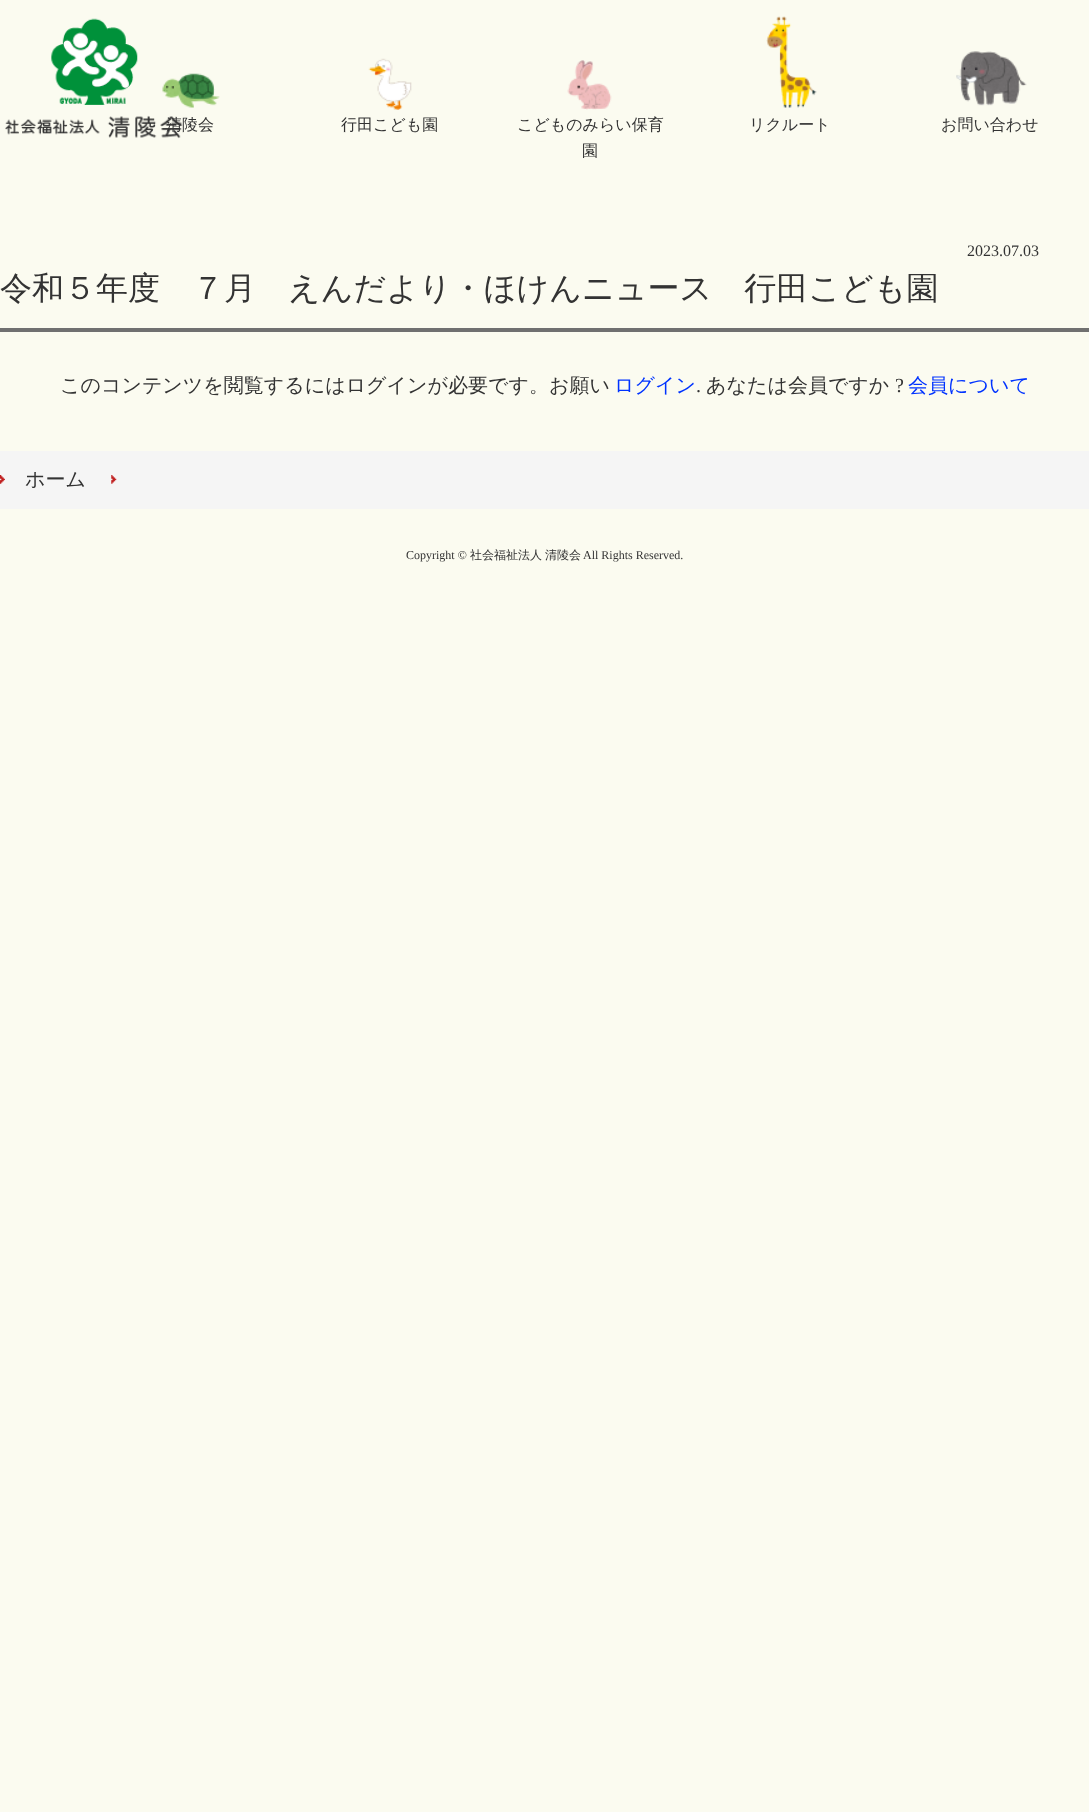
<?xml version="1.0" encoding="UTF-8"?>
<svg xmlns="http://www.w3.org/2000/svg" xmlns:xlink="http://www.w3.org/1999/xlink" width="1089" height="1812">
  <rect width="100%" height="100%" fill="#fbfbf0" />
  <image x="5" y="18" width="178" height="121" xlink:href="image1.png" />
  <image x="162" y="73" width="58" height="35" xlink:href="image2.png" />
  <image x="368" y="58" width="44" height="52" xlink:href="image3.png" />
  <image x="567" y="60" width="45" height="50" xlink:href="image4.png" />
  <image x="766" y="16" width="51" height="92" xlink:href="image5.png" />
  <image x="956" y="51" width="71" height="55" xlink:href="image6.png" />
  <rect y="328" width="1089" height="4" fill="#707070" />
  <rect y="451" width="1089" height="58" fill="#f5f5f5" />
  <image x="0" y="475" width="5" height="9" xlink:href="image7.png" />
  <image x="111" y="475" width="6" height="9" xlink:href="image8.png" />
  <text x="166" y="130" style="font-family: WenQuanYi Zen Hei; font-size: 16px; font-weight: 500; fill: #333333">清陵会</text>
  <text x="341" y="130" style="font-family: WenQuanYi Zen Hei; font-size: 16px; font-weight: 500; fill: #333333">行田こども園</text>
  <text x="517" y="130" style="font-family: WenQuanYi Zen Hei; font-size: 16px; font-weight: 500; fill: #333333">こどものみらい保育</text>
  <text x="582" y="156" style="font-family: WenQuanYi Zen Hei; font-size: 16px; font-weight: 500; fill: #333333">園</text>
  <text x="749" y="130" style="font-family: WenQuanYi Zen Hei; font-size: 16px; font-weight: 500; fill: #333333">リクルート</text>
  <text x="941" y="130" style="font-family: WenQuanYi Zen Hei; font-size: 16px; font-weight: 500; fill: #333333">お問い合わせ</text>
  <text x="967" y="256" style="font-family: Liberation Serif; font-size: 16px; fill: #333333">2023.07.03</text>
  <text x="0" y="299" style="font-family: WenQuanYi Zen Hei; font-size: 32px; font-weight: 500; fill: #333333">令和５年度　７月　えんだより・ほけんニュース　行田こども園</text>
  <text x="60" y="392" style="font-family: WenQuanYi Zen Hei; font-size: 20px; font-weight: 500; fill: #333333">このコンテンツを閲覧するにはログインが必要です。お願い</text>
  <text x="614" y="392" style="font-family: WenQuanYi Zen Hei; font-size: 20px; font-weight: 500; fill: #0033ff">ログイン</text>
  <text x="696" y="392" style="font-family: Liberation Serif; font-size: 20px; fill: #333333">.</text>
  <text x="706" y="392" style="font-family: WenQuanYi Zen Hei; font-size: 20px; font-weight: 500; fill: #333333">あなたは会員ですか</text>
  <text x="895" y="392" style="font-family: Liberation Serif; font-size: 20px; fill: #333333">?</text>
  <text x="908" y="392" style="font-family: WenQuanYi Zen Hei; font-size: 20px; font-weight: 500; fill: #0033ff">会員について</text>
  <text x="25" y="486" style="font-family: WenQuanYi Zen Hei; font-size: 20px; font-weight: 500; fill: #333333">ホーム</text>
  <text x="406" y="559" style="font-family: Liberation Serif; font-size: 12px; fill: #333333">Copyright ©</text>
  <text x="470" y="559" style="font-family: WenQuanYi Zen Hei; font-size: 12px; font-weight: 500; fill: #333333">社会福祉法人</text>
  <text x="545" y="559" style="font-family: WenQuanYi Zen Hei; font-size: 12px; font-weight: 500; fill: #333333">清陵会</text>
  <text x="583" y="559" style="font-family: Liberation Serif; font-size: 12px; fill: #333333">All Rights Reserved.</text>
</svg>
